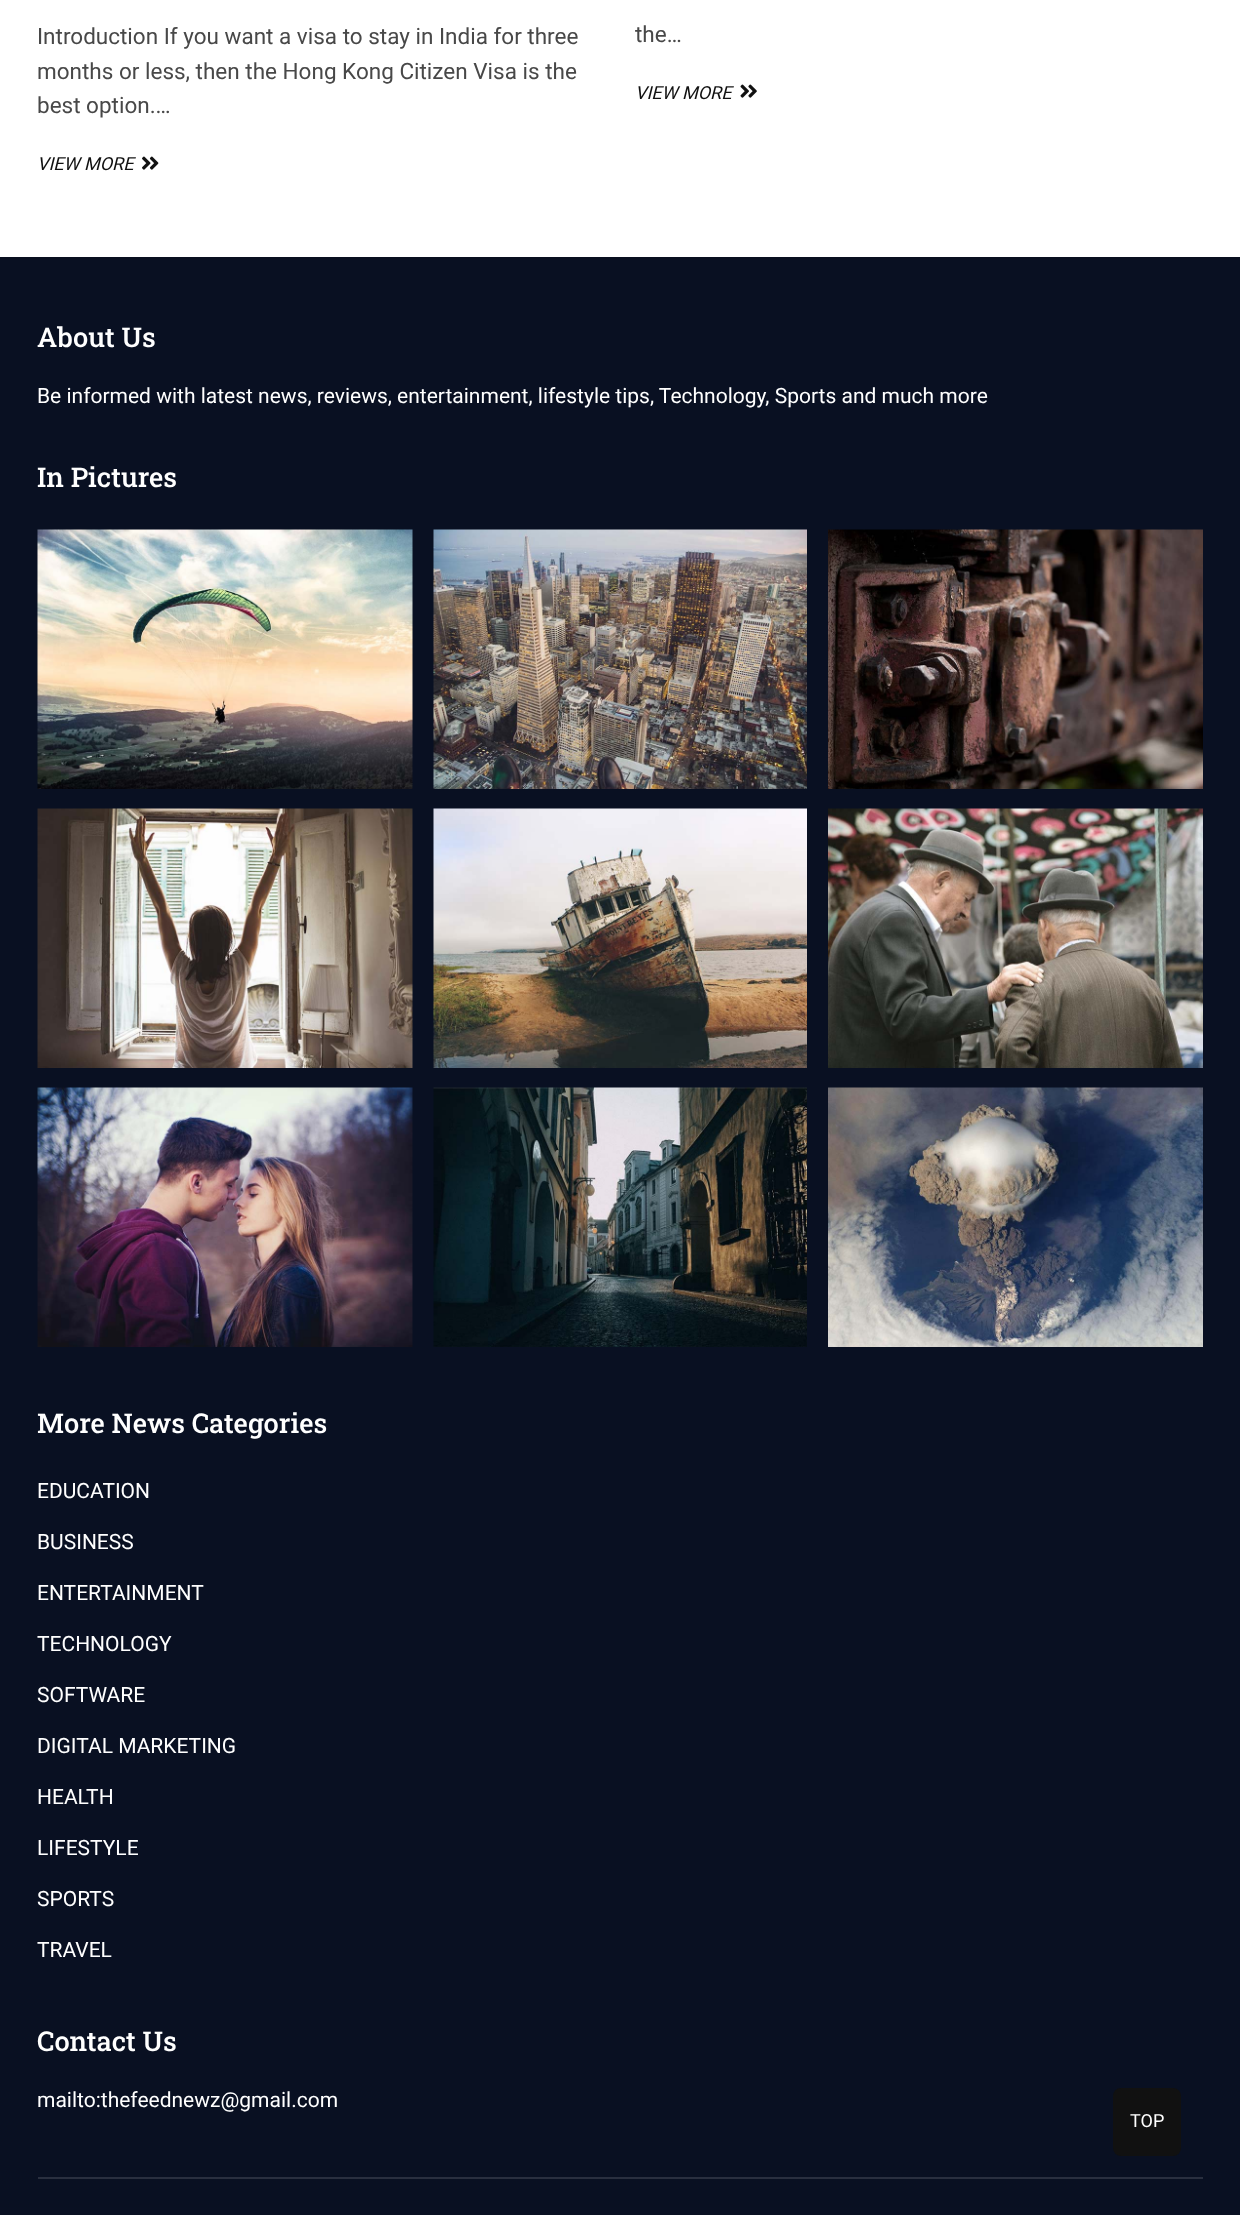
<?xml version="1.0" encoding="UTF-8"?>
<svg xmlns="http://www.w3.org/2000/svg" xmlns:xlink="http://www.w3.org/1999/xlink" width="1240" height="2215">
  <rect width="100%" height="100%" fill="#ffffff" />
  <image x="142" y="156" width="17" height="14" xlink:href="image1.png" />
  <image x="740" y="84" width="17" height="14" xlink:href="image2.png" />
  <rect y="259" width="1240" height="1956" fill="#091022" />
  <rect y="257" width="1240" height="2" fill="#090f20" />
  <image x="37" y="529" width="376" height="260" xlink:href="image3.png" />
  <image x="433" y="529" width="374" height="260" xlink:href="image4.png" />
  <image x="828" y="529" width="375" height="260" xlink:href="image5.png" />
  <image x="37" y="808" width="376" height="260" xlink:href="image6.png" />
  <image x="433" y="808" width="374" height="260" xlink:href="image7.png" />
  <image x="828" y="808" width="375" height="260" xlink:href="image8.png" />
  <image x="37" y="1087" width="376" height="260" xlink:href="image9.png" />
  <image x="433" y="1087" width="374" height="260" xlink:href="image10.png" />
  <image x="828" y="1087" width="375" height="260" xlink:href="image11.png" />
  <rect x="1113" y="2088" width="68" height="68" rx="8" fill="#111111" />
  <rect x="38" y="2177" width="1165" height="2" fill="#292f3f" />
  <text x="37" y="44" style="font-family: Roboto; font-size: 22.5px; fill: #484848">Introduction If you want a visa to stay in India for three</text>
  <text x="37" y="79" style="font-family: Roboto; font-size: 22.5px; fill: #484848">months or less, then the Hong Kong Citizen Visa is the</text>
  <text x="37" y="113" style="font-family: Roboto; font-size: 22.5px; fill: #484848">best option.…</text>
  <text x="37" y="170" style="font-family: Roboto; font-size: 18px; font-style: italic; fill: #111111">VIEW MORE</text>
  <text x="635" y="42" style="font-family: Roboto; font-size: 22.5px; fill: #484848">the…</text>
  <text x="635" y="99" style="font-family: Roboto; font-size: 18px; font-style: italic; fill: #111111">VIEW MORE</text>
  <text x="37" y="347" style="font-family: Roboto Slab; font-size: 27.25px; font-weight: 500; fill: #ffffff">About Us</text>
  <text x="37" y="403" style="font-family: Roboto; font-size: 21px; fill: #ffffff">Be informed with latest news, reviews, entertainment, lifestyle tips, Technology, Sports and much more</text>
  <text x="37" y="487" style="font-family: Roboto Slab; font-size: 27.25px; font-weight: 500; fill: #ffffff">In Pictures</text>
  <text x="37" y="1433" style="font-family: Roboto Slab; font-size: 27.25px; font-weight: 500; fill: #ffffff">More News Categories</text>
  <text x="37" y="1498" style="font-family: Roboto; font-size: 21px; fill: #ffffff">EDUCATION</text>
  <text x="37" y="1549" style="font-family: Roboto; font-size: 21px; fill: #ffffff">BUSINESS</text>
  <text x="37" y="1600" style="font-family: Roboto; font-size: 21px; fill: #ffffff">ENTERTAINMENT</text>
  <text x="37" y="1651" style="font-family: Roboto; font-size: 21px; fill: #ffffff">TECHNOLOGY</text>
  <text x="37" y="1702" style="font-family: Roboto; font-size: 21px; fill: #ffffff">SOFTWARE</text>
  <text x="37" y="1753" style="font-family: Roboto; font-size: 21px; fill: #ffffff">DIGITAL MARKETING</text>
  <text x="37" y="1804" style="font-family: Roboto; font-size: 21px; fill: #ffffff">HEALTH</text>
  <text x="37" y="1855" style="font-family: Roboto; font-size: 21px; fill: #ffffff">LIFESTYLE</text>
  <text x="37" y="1906" style="font-family: Roboto; font-size: 21px; fill: #ffffff">SPORTS</text>
  <text x="37" y="1957" style="font-family: Roboto; font-size: 21px; fill: #ffffff">TRAVEL</text>
  <text x="37" y="2051" style="font-family: Roboto Slab; font-size: 27.25px; font-weight: 500; fill: #ffffff">Contact Us</text>
  <text x="37" y="2107" style="font-family: Roboto; font-size: 21px; fill: #ffffff">mailto:thefeednewz@gmail.com</text>
  <text x="1130" y="2127" style="font-family: Roboto; font-size: 18px; fill: #ffffff">TOP</text>
</svg>
